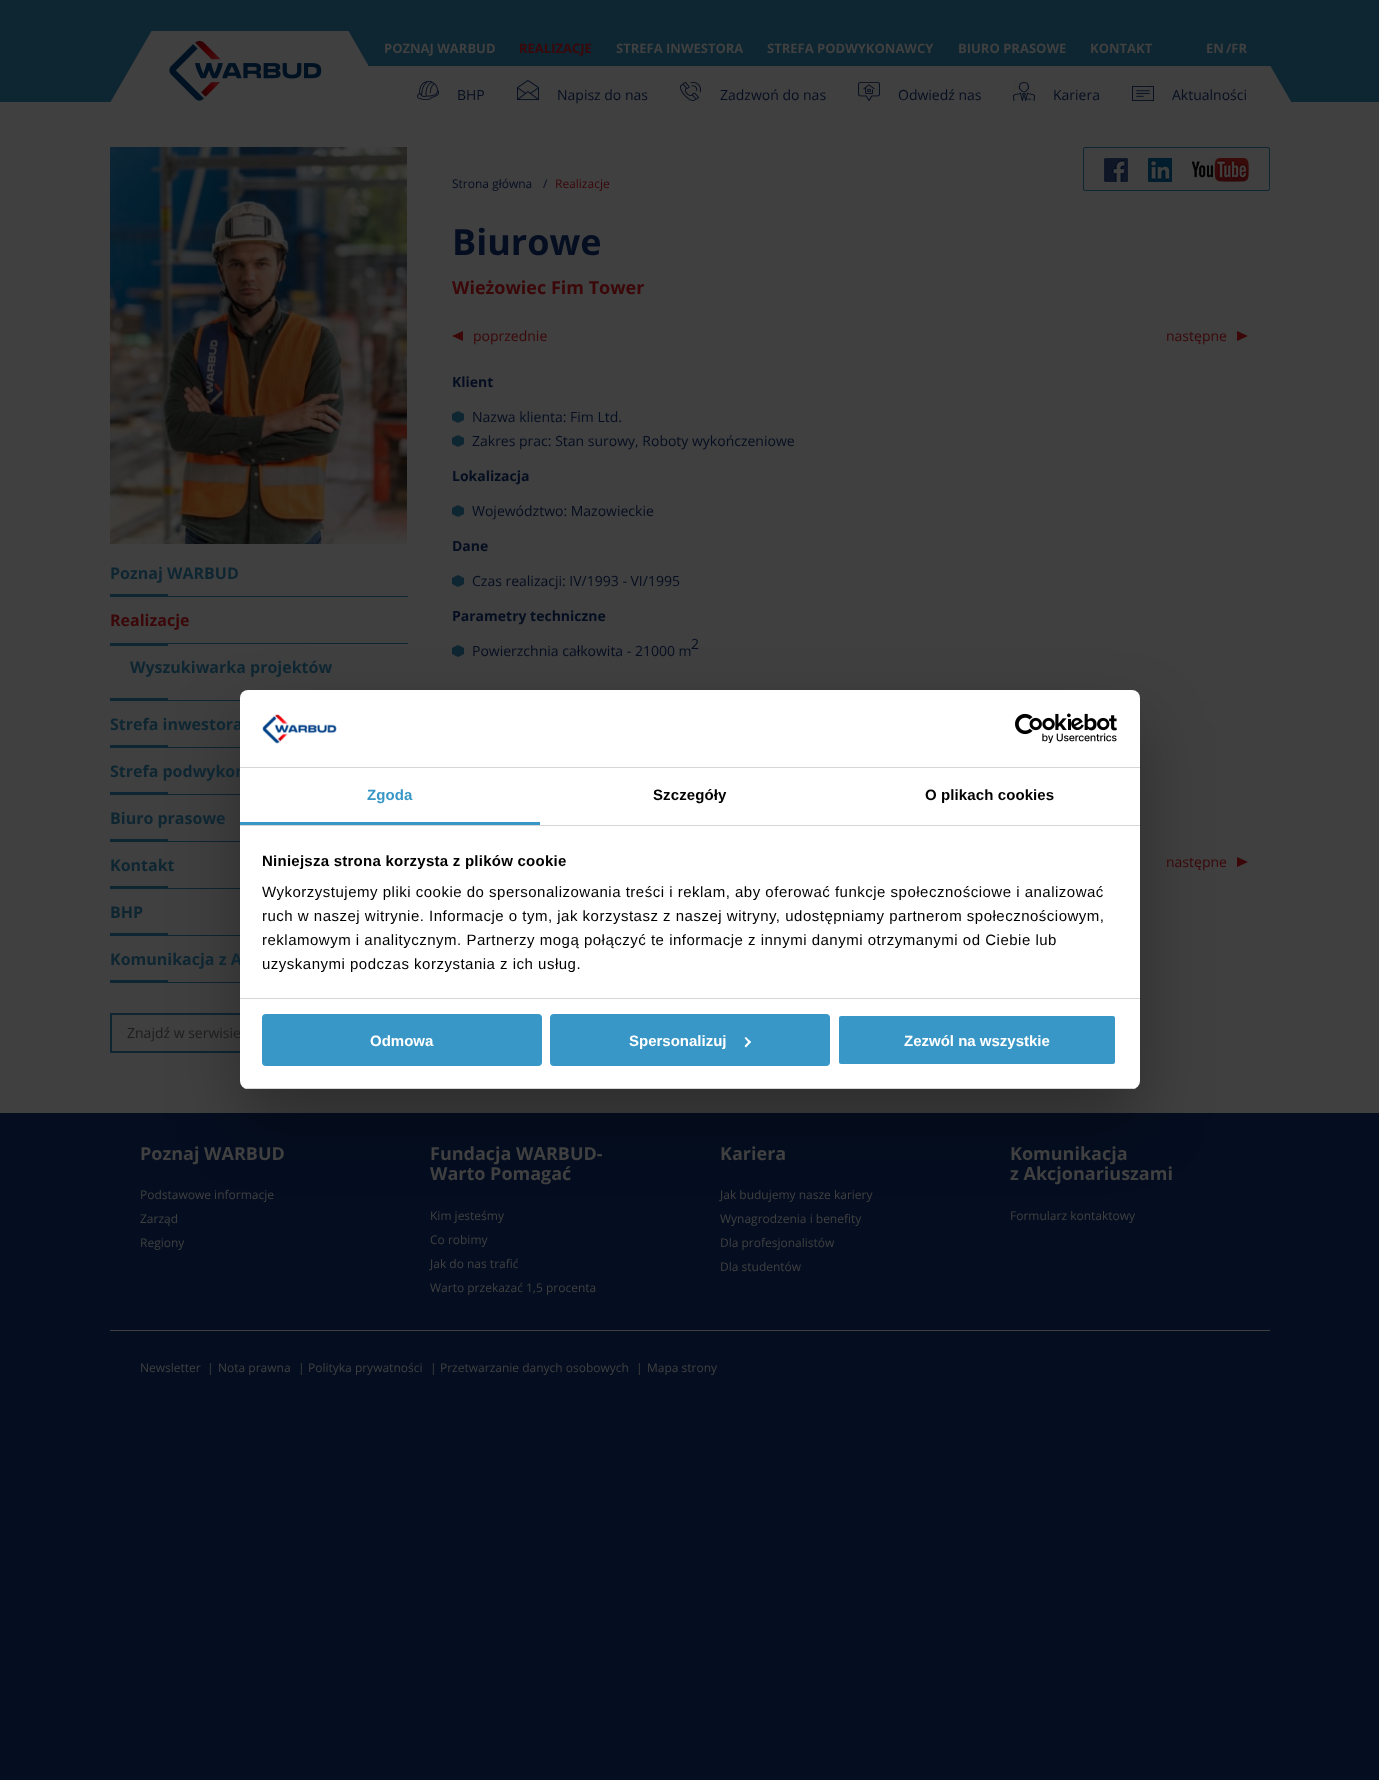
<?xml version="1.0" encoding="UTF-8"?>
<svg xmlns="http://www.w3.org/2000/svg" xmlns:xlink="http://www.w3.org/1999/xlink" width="1379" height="1780">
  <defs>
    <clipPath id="clip1"><rect x="240" y="690" width="900" height="399" rx="8" /></clipPath>
  </defs>
  <rect width="100%" height="100%" fill="#050e20" />
  <rect width="1379" height="102" fill="#0e2632" />
  <image x="110" y="31" width="258" height="71" xlink:href="image1.png" />
  <image x="169" y="40" width="153" height="61" xlink:href="image2.png" />
  <rect x="368" y="66" width="902" height="36" fill="#404040" />
  <image x="417" y="81" width="22" height="19" xlink:href="image3.png" />
  <image x="517" y="80" width="22" height="21" xlink:href="image4.png" />
  <image x="680" y="80" width="21" height="21" xlink:href="image5.png" />
  <image x="858" y="80" width="22" height="21" xlink:href="image6.png" />
  <image x="1013" y="80" width="22" height="21" xlink:href="image7.png" />
  <image x="1132" y="80" width="22" height="21" xlink:href="image8.png" />
  <image x="1270" y="66" width="22" height="36" xlink:href="image9.png" />
  <rect y="102" width="1379" height="1011" fill="#404040" />
  <rect x="1083.5" y="147.5" width="186" height="43" rx="1.5" fill="none" stroke="#0e2632" />
  <image x="1104" y="158" width="24" height="24" xlink:href="image10.png" />
  <image x="1148" y="158" width="24" height="24" xlink:href="image11.png" />
  <image x="1192" y="158" width="57" height="24" xlink:href="image12.png" />
  <image x="110" y="147" width="297" height="397" xlink:href="image13.png" />
  <rect x="110" y="596" width="298" height="1" fill="#0e2632" />
  <rect x="110" y="594" width="58" height="2" fill="#0e2632" />
  <rect x="110" y="700" width="130" height="1" fill="#0e2632" />
  <rect x="110" y="643" width="298" height="1" fill="#0e2632" />
  <rect x="110" y="644" width="58" height="2" fill="#0e2632" />
  <rect x="110" y="698" width="58" height="2" fill="#0e2632" />
  <rect x="110" y="747" width="130" height="1" fill="#0e2632" />
  <rect x="110" y="745" width="58" height="2" fill="#0e2632" />
  <rect x="110" y="794" width="130" height="1" fill="#0e2632" />
  <rect x="110" y="792" width="58" height="2" fill="#0e2632" />
  <rect x="110" y="841" width="130" height="1" fill="#0e2632" />
  <rect x="110" y="839" width="58" height="2" fill="#0e2632" />
  <rect x="110" y="888" width="130" height="1" fill="#0e2632" />
  <rect x="110" y="886" width="58" height="2" fill="#0e2632" />
  <rect x="110" y="935" width="130" height="1" fill="#0e2632" />
  <rect x="110" y="933" width="58" height="2" fill="#0e2632" />
  <rect x="110" y="982" width="130" height="1" fill="#0e2632" />
  <rect x="110" y="980" width="58" height="2" fill="#0e2632" />
  <rect x="111" y="1014" width="258" height="38" fill="none" stroke="#0e2632" stroke-width="2" />
  <path d="M 463 331 v 10 l -11 -5 z" fill="#3b0709" />
  <path d="M 1237 341 v -10 l 11 5 z" fill="#3b0709" />
  <image x="452" y="411" width="12" height="12" xlink:href="image14.png" />
  <image x="452" y="435" width="12" height="12" xlink:href="image14.png" />
  <image x="452" y="505" width="12" height="12" xlink:href="image14.png" />
  <image x="452" y="575" width="12" height="12" xlink:href="image14.png" />
  <image x="452" y="645" width="12" height="12" xlink:href="image14.png" />
  <path d="M 1237 867 v -10 l 11 5 z" fill="#3b0709" />
  <rect x="110" y="1330" width="1160" height="1" fill="#404040" />
  <rect x="240" y="722" width="900" height="399" rx="8" fill="#000000" fill-opacity="0.3" filter="blur(34px)" />
  <text x="384" y="53" style="font-family: Open Sans; font-size: 13px; font-weight: bold; fill: #404040">POZNAJ WARBUD</text>
  <text x="519" y="53" style="font-family: Open Sans; font-size: 13px; font-weight: bold; fill: #3b0709">REALIZACJE</text>
  <text x="616" y="53" style="font-family: Open Sans; font-size: 13px; font-weight: bold; fill: #404040">STREFA INWESTORA</text>
  <text x="767" y="53" style="font-family: Open Sans; font-size: 13px; font-weight: bold; fill: #404040">STREFA PODWYKONAWCY</text>
  <text x="958" y="53" style="font-family: Open Sans; font-size: 13px; font-weight: bold; fill: #404040">BIURO PRASOWE</text>
  <text x="1090" y="53" style="font-family: Open Sans; font-size: 13px; font-weight: bold; fill: #404040">KONTAKT</text>
  <text x="1206" y="53" style="font-family: Open Sans; font-size: 13px; font-weight: bold; fill: #404040">EN</text>
  <text x="1226" y="53" style="font-family: Open Sans; font-size: 13px; font-weight: bold; fill: #404040">/FR</text>
  <text x="457" y="100" style="font-family: Open Sans; font-size: 14px; fill: #050e20">BHP</text>
  <text x="557" y="100" style="font-family: Open Sans; font-size: 14px; fill: #050e20">Napisz do nas</text>
  <text x="720" y="100" style="font-family: Open Sans; font-size: 14px; fill: #050e20">Zadzwoń do nas</text>
  <text x="898" y="100" style="font-family: Open Sans; font-size: 14px; fill: #050e20">Odwiedź nas</text>
  <text x="1053" y="100" style="font-family: Open Sans; font-size: 14px; fill: #050e20">Kariera</text>
  <text x="1172" y="100" style="font-family: Open Sans; font-size: 14px; fill: #050e20">Aktualności</text>
  <text x="110" y="579" style="font-family: Open Sans; font-size: 16px; font-weight: bold; fill: #0e2632">Poznaj WARBUD</text>
  <text x="110" y="626" style="font-family: Open Sans; font-size: 16px; font-weight: bold; fill: #3b0709">Realizacje</text>
  <text x="130" y="673" style="font-family: Open Sans; font-size: 16px; font-weight: bold; fill: #0e2632">Wyszukiwarka projektów</text>
  <text x="110" y="730" style="font-family: Open Sans; font-size: 16px; font-weight: bold; fill: #0e2632">Strefa inwestora</text>
  <text x="110" y="777" style="font-family: Open Sans; font-size: 16px; font-weight: bold; fill: #0e2632">Strefa podwykon</text>
  <text x="110" y="824" style="font-family: Open Sans; font-size: 16px; font-weight: bold; fill: #0e2632">Biuro prasowe</text>
  <text x="110" y="871" style="font-family: Open Sans; font-size: 16px; font-weight: bold; fill: #0e2632">Kontakt</text>
  <text x="110" y="918" style="font-family: Open Sans; font-size: 16px; font-weight: bold; fill: #0e2632">BHP</text>
  <text x="110" y="965" style="font-family: Open Sans; font-size: 16px; font-weight: bold; fill: #0e2632">Komunikacja z A</text>
  <text x="127" y="1038" style="font-family: Open Sans; font-size: 14px; fill: #1d1d1d">Znajdź w serwisie</text>
  <text x="452" y="188" style="font-family: Open Sans; font-size: 12px; fill: #050e20">Strona główna</text>
  <text x="543" y="188" style="font-family: Open Sans; font-size: 12px; fill: #050e20">/</text>
  <text x="555" y="188" style="font-family: Open Sans; font-size: 12px; fill: #3b0709">Realizacje</text>
  <text x="452" y="255" style="font-family: Open Sans; font-size: 36px; font-weight: bold; fill: #050e20">Biurowe</text>
  <text x="452" y="294" style="font-family: Open Sans; font-size: 18px; font-weight: bold; fill: #3b0709">Wieżowiec Fim Tower</text>
  <text x="473" y="341" style="font-family: Open Sans; font-size: 14px; fill: #3b0709">poprzednie</text>
  <text x="1166" y="341" style="font-family: Open Sans; font-size: 14px; fill: #3b0709">następne</text>
  <text x="452" y="387" style="font-family: Open Sans; font-size: 14px; font-weight: bold; fill: #050e20">Klient</text>
  <text x="472" y="422" style="font-family: Open Sans; font-size: 14px; fill: #050e20">Nazwa klienta: Fim Ltd.</text>
  <text x="472" y="446" style="font-family: Open Sans; font-size: 14px; fill: #050e20">Zakres prac: Stan surowy, Roboty wykończeniowe</text>
  <text x="452" y="481" style="font-family: Open Sans; font-size: 14px; font-weight: bold; fill: #050e20">Lokalizacja</text>
  <text x="472" y="516" style="font-family: Open Sans; font-size: 14px; fill: #050e20">Województwo: Mazowieckie</text>
  <text x="452" y="551" style="font-family: Open Sans; font-size: 14px; font-weight: bold; fill: #050e20">Dane</text>
  <text x="472" y="586" style="font-family: Open Sans; font-size: 14px; fill: #050e20">Czas realizacji: IV/1993 - VI/1995</text>
  <text x="452" y="621" style="font-family: Open Sans; font-size: 14px; font-weight: bold; fill: #050e20">Parametry techniczne</text>
  <text x="691" y="649" style="font-family: Open Sans; font-size: 14px; fill: #050e20">2</text>
  <text x="472" y="656" style="font-family: Open Sans; font-size: 14px; fill: #050e20">Powierzchnia całkowita - 21000 m</text>
  <text x="1166" y="867" style="font-family: Open Sans; font-size: 14px; fill: #3b0709">następne</text>
  <text x="140" y="1160" style="font-family: Open Sans; font-size: 18px; font-weight: bold; fill: #404040">Poznaj WARBUD</text>
  <text x="140" y="1199" style="font-family: Open Sans; font-size: 12px; fill: #404040">Podstawowe informacje</text>
  <text x="140" y="1223" style="font-family: Open Sans; font-size: 12px; fill: #404040">Zarząd</text>
  <text x="140" y="1247" style="font-family: Open Sans; font-size: 12px; fill: #404040">Regiony</text>
  <text x="430" y="1160" style="font-family: Open Sans; font-size: 18px; font-weight: bold; fill: #404040">Fundacja WARBUD-</text>
  <text x="430" y="1180" style="font-family: Open Sans; font-size: 18px; font-weight: bold; fill: #404040">Warto Pomagać</text>
  <text x="430" y="1220" style="font-family: Open Sans; font-size: 12px; fill: #404040">Kim jesteśmy</text>
  <text x="430" y="1244" style="font-family: Open Sans; font-size: 12px; fill: #404040">Co robimy</text>
  <text x="430" y="1268" style="font-family: Open Sans; font-size: 12px; fill: #404040">Jak do nas trafić</text>
  <text x="430" y="1292" style="font-family: Open Sans; font-size: 12px; fill: #404040">Warto przekazać 1,5 procenta</text>
  <text x="720" y="1160" style="font-family: Open Sans; font-size: 18px; font-weight: bold; fill: #404040">Kariera</text>
  <text x="720" y="1199" style="font-family: Open Sans; font-size: 12px; fill: #404040">Jak budujemy nasze kariery</text>
  <text x="720" y="1223" style="font-family: Open Sans; font-size: 12px; fill: #404040">Wynagrodzenia i benefity</text>
  <text x="720" y="1247" style="font-family: Open Sans; font-size: 12px; fill: #404040">Dla profesjonalistów</text>
  <text x="720" y="1271" style="font-family: Open Sans; font-size: 12px; fill: #404040">Dla studentów</text>
  <text x="1010" y="1160" style="font-family: Open Sans; font-size: 18px; font-weight: bold; fill: #404040">Komunikacja</text>
  <text x="1010" y="1180" style="font-family: Open Sans; font-size: 18px; font-weight: bold; fill: #404040">z Akcjonariuszami</text>
  <text x="1010" y="1220" style="font-family: Open Sans; font-size: 12px; fill: #404040">Formularz kontaktowy</text>
  <text x="140" y="1372" style="font-family: Open Sans; font-size: 12px; fill: #404040">Newsletter</text>
  <text x="207" y="1372" style="font-family: Open Sans; font-size: 12px; fill: #404040">|</text>
  <text x="218" y="1372" style="font-family: Open Sans; font-size: 12px; fill: #404040">Nota prawna</text>
  <text x="298" y="1372" style="font-family: Open Sans; font-size: 12px; fill: #404040">|</text>
  <text x="308" y="1372" style="font-family: Open Sans; font-size: 12px; fill: #404040">Polityka prywatności</text>
  <text x="430" y="1372" style="font-family: Open Sans; font-size: 12px; fill: #404040">|</text>
  <text x="440" y="1372" style="font-family: Open Sans; font-size: 12px; fill: #404040">Przetwarzanie danych osobowych</text>
  <text x="636" y="1372" style="font-family: Open Sans; font-size: 12px; fill: #404040">|</text>
  <text x="647" y="1372" style="font-family: Open Sans; font-size: 12px; fill: #404040">Mapa strony</text>
  <rect x="240" y="690" width="900" height="399" rx="8" fill="#ffffff" />
  <rect x="240" y="767" width="900" height="1" fill="#d6d6d6" />
  <image x="262" y="714" width="75" height="30" xlink:href="image15.png" />
  <image x="1015" y="713" width="102" height="30" xlink:href="image16.png" />
  <rect x="240" y="825" width="900" height="1" fill="#d6d6d6" />
  <rect x="240" y="822" width="300" height="3" fill="#3897c6" />
  <text x="367" y="800" style="font-family: Liberation Sans; font-size: 15px; font-weight: bold; letter-spacing: 0.1px; fill: #3897c6">Zgoda</text>
  <text x="653" y="800" style="font-family: Liberation Sans; font-size: 15px; font-weight: bold; letter-spacing: 0.1px; fill: #000000">Szczegóły</text>
  <text x="925" y="800" style="font-family: Liberation Sans; font-size: 15px; font-weight: bold; letter-spacing: 0.1px; fill: #000000">O plikach cookies</text>
  <rect x="240" y="998" width="900" height="1" fill="#d6d6d6" />
  <text x="262" y="866" style="font-family: Liberation Sans; font-size: 15px; font-weight: bold; letter-spacing: 0.25px; fill: #000000">Niniejsza strona korzysta z plików cookie</text>
  <text x="262" y="897" style="font-family: Liberation Sans; font-size: 15px; letter-spacing: 0.5px; fill: #000000">Wykorzystujemy pliki cookie do spersonalizowania treści i reklam, aby oferować funkcje społecznościowe i analizować</text>
  <text x="262" y="921" style="font-family: Liberation Sans; font-size: 15px; letter-spacing: 0.5px; fill: #000000">ruch w naszej witrynie. Informacje o tym, jak korzystasz z naszej witryny, udostępniamy partnerom społecznościowym,</text>
  <text x="262" y="945" style="font-family: Liberation Sans; font-size: 15px; letter-spacing: 0.5px; fill: #000000">reklamowym i analitycznym. Partnerzy mogą połączyć te informacje z innymi danymi otrzymanymi od Ciebie lub</text>
  <text x="262" y="969" style="font-family: Liberation Sans; font-size: 15px; letter-spacing: 0.5px; fill: #000000">uzyskanymi podczas korzystania z ich usług.</text>
  <g clip-path="url(#clip1)">
    <rect x="240" y="1088" width="900" height="1" fill="#d6d6d6" />
  </g>
  <rect x="263" y="1015" width="278" height="50" rx="3" fill="#3897c6" stroke="#3897c6" stroke-width="2" />
  <text x="370" y="1046" style="font-family: Liberation Sans; font-size: 15px; font-weight: bold; fill: #ffffff">Odmowa</text>
  <rect x="551" y="1015" width="278" height="50" rx="3" fill="#3897c6" stroke="#3897c6" stroke-width="2" />
  <text x="629" y="1046" style="font-family: Liberation Sans; font-size: 15px; font-weight: bold; fill: #ffffff">Spersonalizuj</text>
  <path d="M 746 1037 l 5 5 l -1.5 1.5 l -5 -5.5 z" fill="#ffffff" />
  <path d="M 749.5 1040.5 l 1.5 1.5 l -5 5.5 l -1.5 -1.5 z" fill="#ffffff" />
  <rect x="838" y="1015" width="278" height="50" rx="3" fill="#3897c6" stroke="#ffffff" stroke-width="2" />
  <text x="904" y="1046" style="font-family: Liberation Sans; font-size: 15px; font-weight: bold; fill: #ffffff">Zezwól na wszystkie</text>
</svg>
